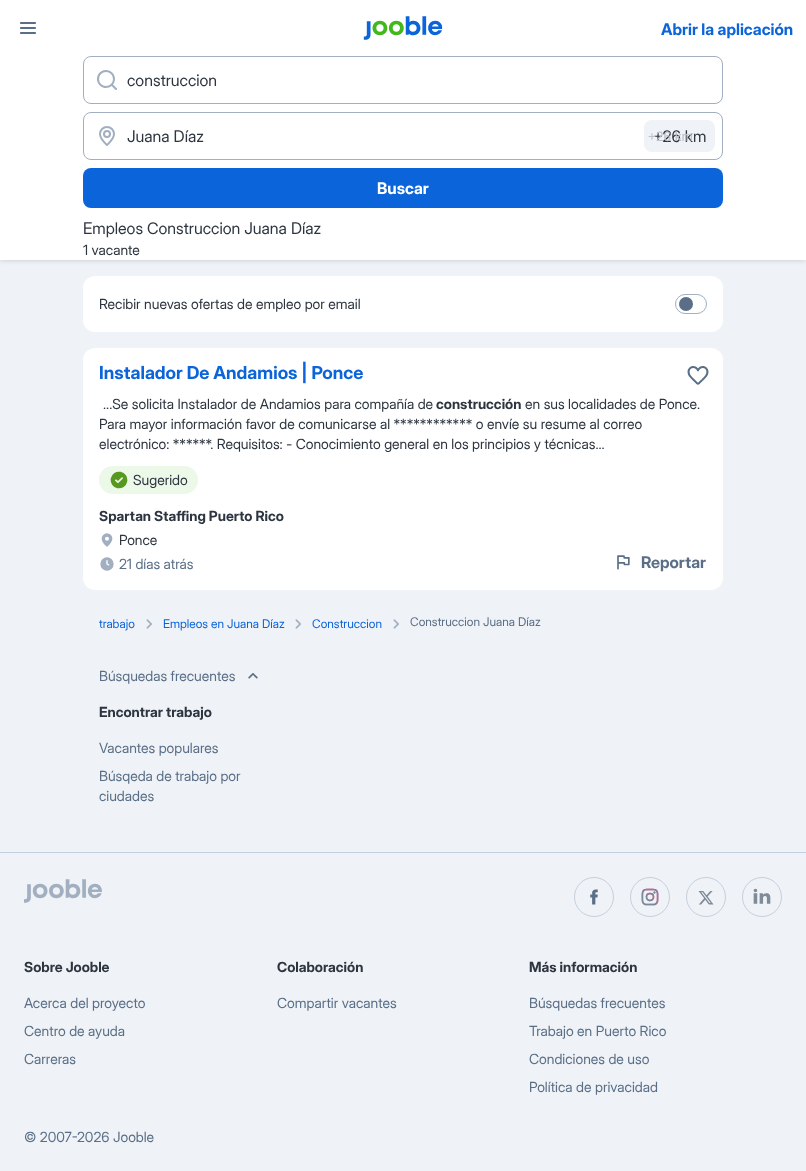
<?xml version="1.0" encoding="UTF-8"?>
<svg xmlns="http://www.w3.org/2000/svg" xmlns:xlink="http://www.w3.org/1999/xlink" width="806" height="1171">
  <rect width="100%" height="100%" fill="#eff2f6" />
  <rect width="806" height="260" fill="#171e26" fill-opacity="0.12" filter="blur(3px)" />
  <rect width="806" height="260" fill="#171e26" fill-opacity="0.08" filter="blur(2px)" />
  <rect width="806" height="260" fill="#ffffff" />
  <image x="20" y="22" width="16" height="12" xlink:href="image1.png" />
  <image x="363" y="16" width="80" height="24" xlink:href="image2.png" />
  <rect x="83.5" y="56.5" width="639" height="47" rx="7.5" fill="none" stroke="#a1afc1" />
  <image x="97" y="70" width="20" height="20" xlink:href="image3.png" />
  <rect x="83.5" y="112.5" width="639" height="47" rx="7.5" fill="none" stroke="#a1afc1" />
  <image x="99" y="126" width="16" height="20" xlink:href="image4.png" />
  <rect x="644" y="120" width="71" height="32" rx="8" fill="#eff2f6" />
  <rect x="83" y="168" width="640" height="40" rx="8" fill="#0b64d9" />
  <rect x="83" y="276" width="640" height="56" rx="12" fill="#ffffff" />
  <rect x="675.5" y="294.5" width="31" height="19" rx="9.5" fill="none" stroke="#a1afc1" />
  <circle cx="686" cy="304" r="7" fill="#5a6f87" />
  <rect x="83" y="348" width="640" height="242" rx="12" fill="#ffffff" />
  <image x="687" y="366" width="22" height="19" xlink:href="image5.png" />
  <rect x="99" y="466" width="99" height="28" rx="14" fill="#ecf8e8" />
  <image x="110" y="471" width="18" height="18" xlink:href="image6.png" />
  <image x="101" y="533" width="12" height="14" xlink:href="image7.png" />
  <image x="100" y="557" width="14" height="14" xlink:href="image8.png" />
  <image x="617" y="555" width="13" height="15" xlink:href="image9.png" />
  <image x="146" y="619" width="6" height="10" xlink:href="image10.png" />
  <image x="295" y="619" width="6" height="10" xlink:href="image10.png" />
  <image x="393" y="619" width="6" height="10" xlink:href="image10.png" />
  <image x="248" y="673" width="10" height="6" xlink:href="image11.png" />
  <rect y="852" width="806" height="1" fill="#c5d0de" />
  <image x="24" y="879" width="78" height="24" xlink:href="image12.png" />
  <circle cx="594" cy="897" r="19.5" fill="none" stroke="#c5d0de" />
  <image x="590" y="889" width="8" height="16" xlink:href="image13.png" />
  <circle cx="650" cy="897" r="19.5" fill="none" stroke="#c5d0de" />
  <image x="641" y="888" width="18" height="18" xlink:href="image14.png" />
  <circle cx="706" cy="897" r="19.5" fill="none" stroke="#c5d0de" />
  <image x="698" y="891" width="16" height="14" xlink:href="image15.png" />
  <circle cx="762" cy="897" r="19.5" fill="none" stroke="#c5d0de" />
  <image x="753" y="888" width="18" height="16" xlink:href="image16.png" />
  <text x="661" y="35" style="font-family: Inter Display; font-size: 16px; font-weight: bold; fill: #0b64d9">Abrir la aplicación</text>
  <text x="127" y="86" style="font-family: Inter Display; font-size: 16px; fill: #2d3540">construccion</text>
  <text x="127" y="142" style="font-family: Inter Display; font-size: 16px; fill: #2d3540">Juana Díaz</text>
  <text x="653" y="142" style="font-family: Inter Display; font-size: 16px; fill: #2d3540">+26 km</text>
  <text x="648" y="141" style="font-family: Liberation Sans; font-size: 13.5px; fill: #bdc1c7">+26 km</text>
  <text x="377" y="194" style="font-family: Inter Display; font-size: 16px; font-weight: bold; fill: #ffffff">Buscar</text>
  <text x="83" y="234" style="font-family: Inter Display; font-size: 16px; fill: #2d3540">Empleos Construccion Juana Díaz</text>
  <text x="83" y="255" style="font-family: Inter Display; font-size: 14px; fill: #2d3540">1 vacante</text>
  <text x="99" y="309" style="font-family: Inter Display; font-size: 14px; fill: #2d3540">Recibir nuevas ofertas de empleo por email</text>
  <text x="99" y="379" style="font-family: Inter Display; font-size: 18px; font-weight: bold; fill: #0b64d9">Instalador De Andamios | Ponce</text>
  <text x="103" y="409" style="font-family: Inter Display; font-size: 14px; fill: #2d3540">...Se solicita Instalador de Andamios para compañía de</text>
  <text x="436" y="409" style="font-family: Inter Display; font-size: 14px; font-weight: bold; fill: #2d3540">construcción</text>
  <text x="525" y="409" style="font-family: Inter Display; font-size: 14px; fill: #2d3540">en sus localidades de Ponce.</text>
  <text x="99" y="429" style="font-family: Inter Display; font-size: 14px; fill: #2d3540">Para mayor información favor de comunicarse al ************ o envíe su resume al correo</text>
  <text x="99" y="449" style="font-family: Inter Display; font-size: 14px; fill: #2d3540">electrónico: ******. Requisitos: - Conocimiento general en los principios y técnicas...</text>
  <text x="133" y="485" style="font-family: Inter Display; font-size: 14px; fill: #2d3540">Sugerido</text>
  <text x="99" y="521" style="font-family: Inter Display; font-size: 14px; font-weight: bold; fill: #2d3540">Spartan Staffing Puerto Rico</text>
  <text x="119" y="545" style="font-family: Inter Display; font-size: 14px; fill: #2d3540">Ponce</text>
  <text x="119" y="569" style="font-family: Inter Display; font-size: 14px; fill: #5a6f87">21 días atrás</text>
  <text x="641" y="568" style="font-family: Inter Display; font-size: 16px; font-weight: bold; fill: #5a6f87">Reportar</text>
  <text x="99" y="628" style="font-family: Inter Display; font-size: 12px; fill: #0b64d9">trabajo</text>
  <text x="163" y="628" style="font-family: Inter Display; font-size: 12px; fill: #0b64d9">Empleos en Juana Díaz</text>
  <text x="312" y="628" style="font-family: Inter Display; font-size: 12px; fill: #0b64d9">Construccion</text>
  <text x="410" y="626" style="font-family: Inter Display; font-size: 12px; fill: #5a6f87">Construccion Juana Díaz</text>
  <text x="99" y="681" style="font-family: Inter Display; font-size: 14px; fill: #5a6f87">Búsquedas frecuentes</text>
  <text x="99" y="717" style="font-family: Inter Display; font-size: 14px; font-weight: bold; fill: #2d3540">Encontrar trabajo</text>
  <text x="99" y="753" style="font-family: Inter Display; font-size: 14px; fill: #5a6f87">Vacantes populares</text>
  <text x="99" y="781" style="font-family: Inter Display; font-size: 14px; fill: #5a6f87">Búsqeda de trabajo por</text>
  <text x="99" y="801" style="font-family: Inter Display; font-size: 14px; fill: #5a6f87">ciudades</text>
  <text x="24" y="972" style="font-family: Inter Display; font-size: 14px; font-weight: bold; fill: #2d3540">Sobre Jooble</text>
  <text x="24" y="1008" style="font-family: Inter Display; font-size: 14px; fill: #5a6f87">Acerca del proyecto</text>
  <text x="24" y="1036" style="font-family: Inter Display; font-size: 14px; fill: #5a6f87">Centro de ayuda</text>
  <text x="24" y="1064" style="font-family: Inter Display; font-size: 14px; fill: #5a6f87">Carreras</text>
  <text x="277" y="972" style="font-family: Inter Display; font-size: 14px; font-weight: bold; fill: #2d3540">Colaboración</text>
  <text x="277" y="1008" style="font-family: Inter Display; font-size: 14px; fill: #5a6f87">Compartir vacantes</text>
  <text x="529" y="972" style="font-family: Inter Display; font-size: 14px; font-weight: bold; fill: #2d3540">Más información</text>
  <text x="529" y="1008" style="font-family: Inter Display; font-size: 14px; fill: #5a6f87">Búsquedas frecuentes</text>
  <text x="529" y="1036" style="font-family: Inter Display; font-size: 14px; fill: #5a6f87">Trabajo en Puerto Rico</text>
  <text x="529" y="1064" style="font-family: Inter Display; font-size: 14px; fill: #5a6f87">Condiciones de uso</text>
  <text x="529" y="1092" style="font-family: Inter Display; font-size: 14px; fill: #5a6f87">Política de privacidad</text>
  <text x="24" y="1142" style="font-family: Inter Display; font-size: 14px; fill: #5a6f87">© 2007-</text>
  <text x="77" y="1142" style="font-family: Inter Display; font-size: 14px; fill: #5a6f87">2026 Jooble</text>
</svg>
